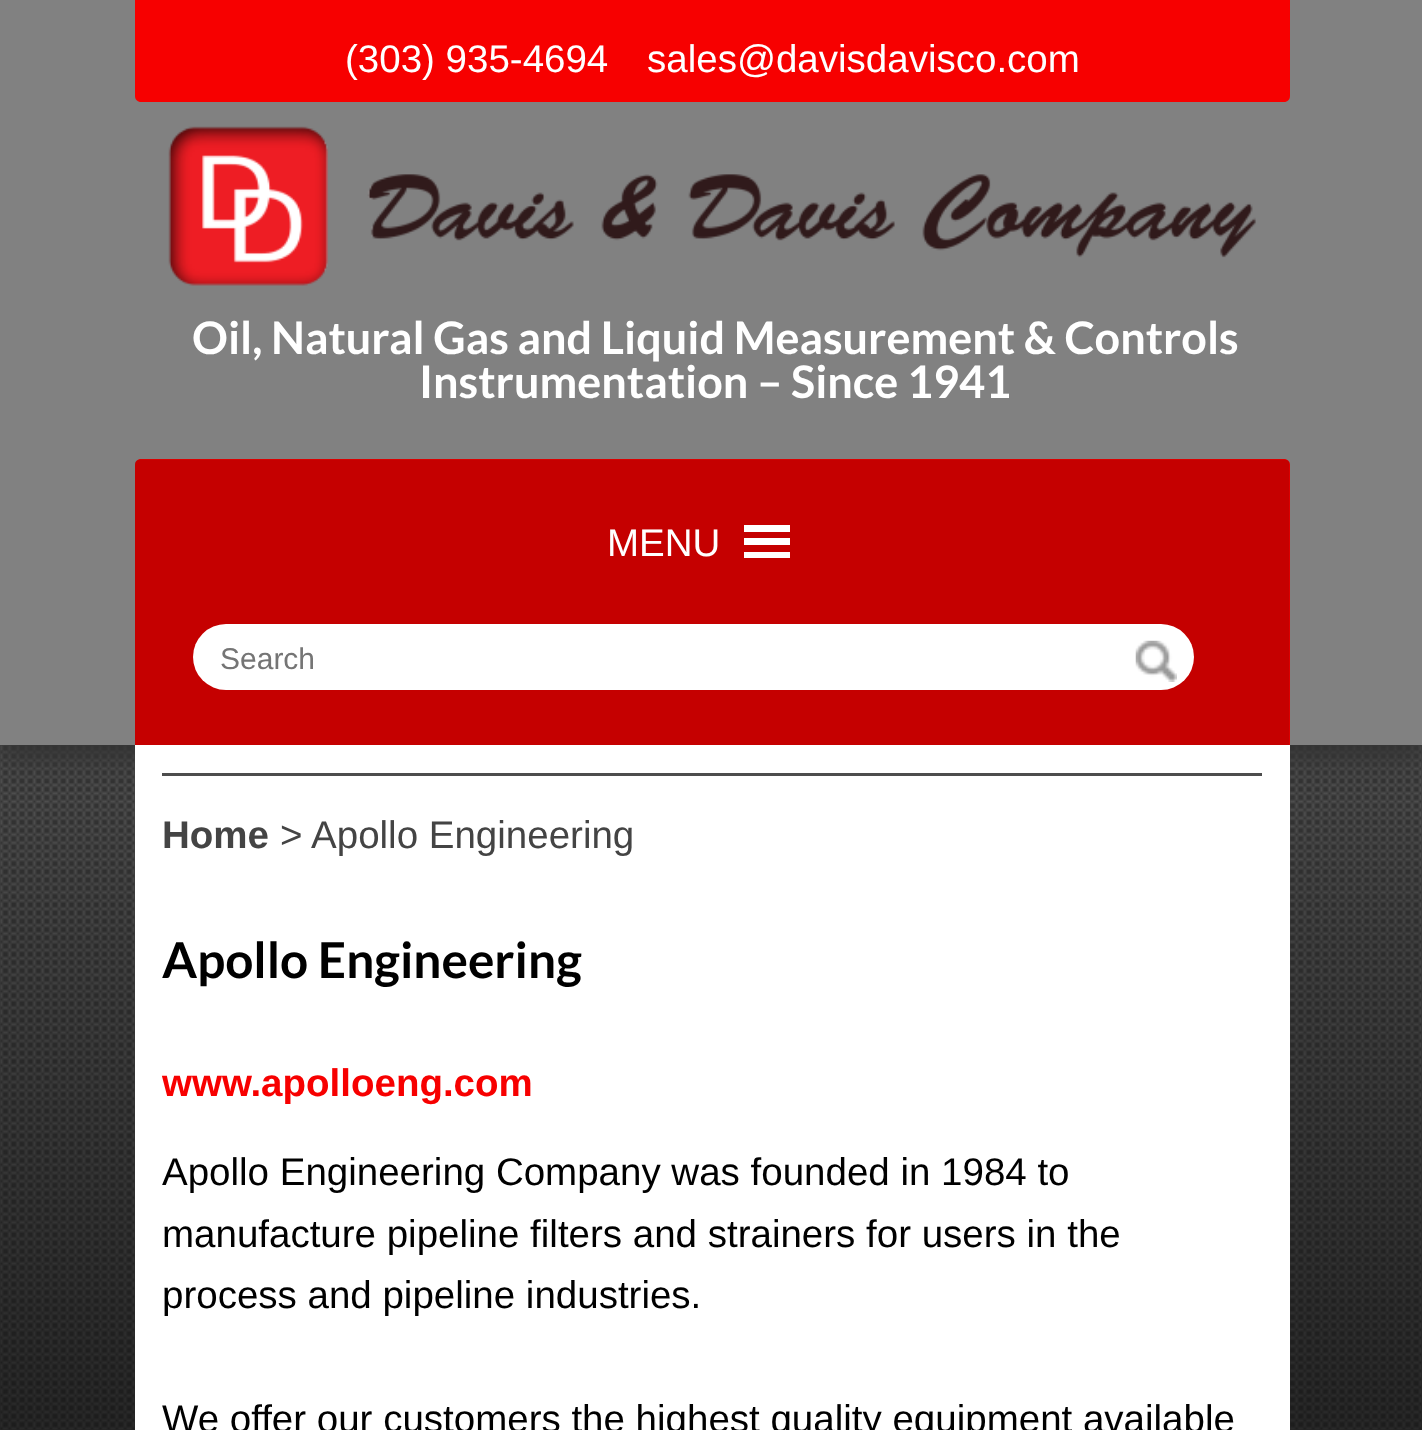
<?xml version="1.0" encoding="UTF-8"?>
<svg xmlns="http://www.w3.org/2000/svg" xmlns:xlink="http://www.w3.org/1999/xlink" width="1422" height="1430">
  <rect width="100%" height="100%" fill="#ffffff" />
  <image x="0" y="745" width="1422" height="685" xlink:href="image1.png" />
  <rect y="14" width="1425" height="745" fill="#333333" filter="blur(14px)" />
  <rect width="1422" height="745" fill="#818181" />
  <path d="M 135 0 h 1155 v 96 c 0 3.5 -2.5 6 -6 6 h -1143 c -3.5 0 -6 -2.5 -6 -6 z" fill="#f70000" />
  <image x="168" y="126" width="1088" height="160" xlink:href="image2.png" />
  <path d="M 141 459 h 1143 c 3.5 0 6 2.5 6 6 v 280 h -1155 v -280 c 0 -3.5 2.5 -6 6 -6 z" fill="#f70000" />
  <image x="135" y="459" width="1155" height="286" xlink:href="image3.png" />
  <path d="M 744 558 h 46 v -6 h -46 z m 0 -33 v 7 h 46 v -7 z m 0 20 h 46 v -7 h -46 z" fill="#ffffff" />
  <rect x="193" y="624" width="1001" height="66" rx="33" fill="#ffffff" />
  <image x="1135" y="640" width="42" height="42" xlink:href="image4.png" />
  <rect x="135" y="745" width="1155" height="685" fill="#ffffff" />
  <rect x="162" y="773" width="1100" height="3" fill="#4d4d4d" />
  <text x="345" y="72" style="font-family: Liberation Sans; font-size: 38.5px; fill: #ffffff">(303) 935-4694</text>
  <text x="647" y="72" style="font-family: Liberation Sans; font-size: 38.5px; fill: #ffffff">sales@davisdavisco.com</text>
  <text x="192" y="354" style="font-family: Lato; font-size: 44.9px; font-weight: bold; fill: #ffffff">Oil, Natural Gas and Liquid Measurement &amp; Controls</text>
  <text x="419" y="398" style="font-family: Lato; font-size: 44.9px; font-weight: bold; fill: #ffffff">Instrumentation – Since 1941</text>
  <text x="607" y="556" style="font-family: Liberation Sans; font-size: 38.5px; fill: #ffffff">MENU</text>
  <text x="220" y="669" style="font-family: Liberation Sans; font-size: 30px; fill: #757575">Search</text>
  <text x="162" y="848" style="font-family: Liberation Sans; font-size: 38.5px; font-weight: bold; fill: #444444">Home</text>
  <text x="280" y="848" style="font-family: Liberation Sans; font-size: 38.5px; fill: #444444">&gt; Apollo Engineering</text>
  <text x="162" y="978" style="font-family: Lato; font-size: 49.5px; font-weight: bold; fill: #000000">Apollo Engineering</text>
  <text x="162" y="1096" style="font-family: Liberation Sans; font-size: 38.5px; font-weight: bold; fill: #f70000">www.apolloeng.com</text>
  <text x="162" y="1185" style="font-family: Liberation Sans; font-size: 38.5px; fill: #000000">Apollo Engineering Company was founded in 1984 to</text>
  <text x="162" y="1247" style="font-family: Liberation Sans; font-size: 38.5px; fill: #000000">manufacture pipeline filters and strainers for users in the</text>
  <text x="162" y="1308" style="font-family: Liberation Sans; font-size: 38.5px; fill: #000000">process and pipeline industries.</text>
  <text x="162" y="1432" style="font-family: Liberation Sans; font-size: 38.5px; fill: #000000">We offer our customers the highest quality equipment available</text>
</svg>
